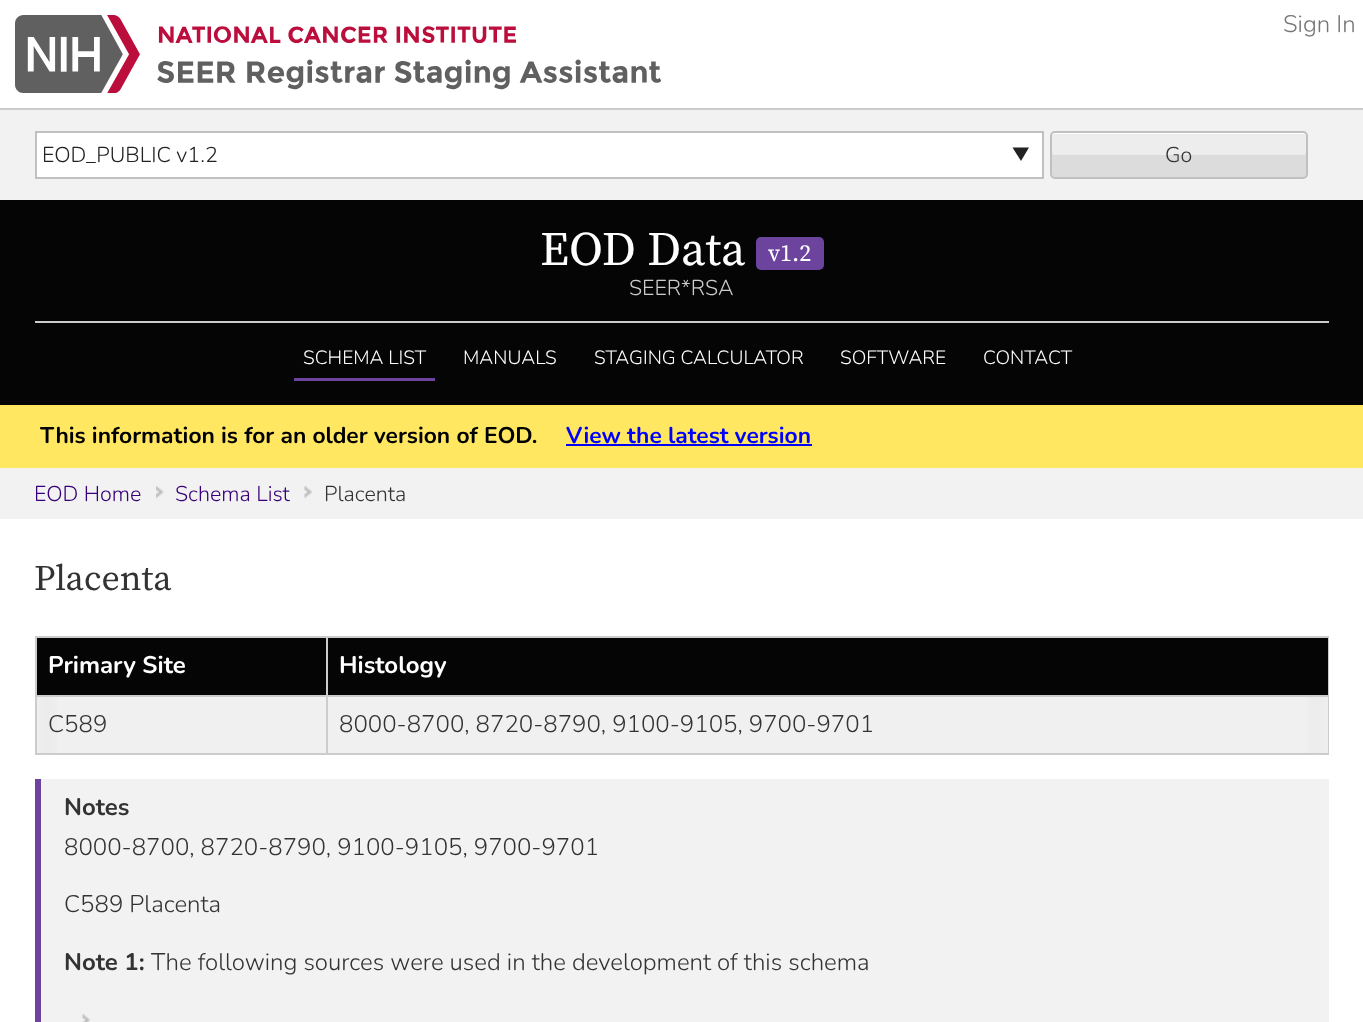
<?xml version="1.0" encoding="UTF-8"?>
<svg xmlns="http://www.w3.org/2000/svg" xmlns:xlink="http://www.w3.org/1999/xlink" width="1363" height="1022">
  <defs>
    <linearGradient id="g1" gradientUnits="userSpaceOnUse" x1="1329" y1="695" x2="1305" y2="695"><stop offset="0" stop-color="#c3c3c5" /><stop offset="1" stop-color="#ffffff" /></linearGradient>
    <linearGradient id="g2" gradientUnits="userSpaceOnUse" x1="35" y1="695" x2="59" y2="695"><stop offset="0" stop-color="#c3c3c5" /><stop offset="1" stop-color="#ffffff" /></linearGradient>
    <linearGradient id="g3" gradientUnits="userSpaceOnUse" x1="1329" y1="695" x2="1233" y2="695"><stop offset="0" stop-color="#ffffff" /><stop offset="1" stop-color="#ffffff" stop-opacity="0" /></linearGradient>
    <linearGradient id="g4" gradientUnits="userSpaceOnUse" x1="35" y1="695" x2="131" y2="695"><stop offset="0" stop-color="#ffffff" /><stop offset="1" stop-color="#ffffff" stop-opacity="0" /></linearGradient>
  </defs>
  <rect width="100%" height="100%" fill="#050505" />
  <rect width="1363" height="108" fill="#ffffff" />
  <image x="15" y="15" width="647" height="78" xlink:href="image1.png" />
  <rect y="110" width="1363" height="90" fill="#f2f2f2" />
  <rect y="108" width="1363" height="2" fill="#cccccc" />
  <rect x="37" y="133" width="1005" height="44" fill="#ffffff" />
  <path d="M 1029 147.5 l -8 13.5 l -8.5 -13.5 z" fill="#222222" />
  <rect x="36" y="132" width="1007" height="46" fill="none" stroke="#c0c0c0" stroke-width="2" />
  <rect x="1050" y="131" width="258" height="48" rx="5" fill="#ededed" />
  <path d="M 1054 134 h 250 c 1 0 2 1 2 2 v 40 c 1 0 1 -1 1 -2 v -39 c 0 -2 -1 -3 -3 -3 h -249 c -2 0 -3 1 -3 3 v 1 c 0 -1 1 -2 2 -2 z" fill="#ffffff" />
  <path d="M 1052 152 v 22 c 0 2 1 3 3 3 h 249 c 2 0 3 -1 3 -3 v -39 c 0 -1 0 -2 -1 -2 v 19 c 0 2 -1 3 -2 3 h -250 c -1 0 -2 -1 -2 -3 z" fill="#000000" fill-opacity="0.07" />
  <rect x="1051" y="132" width="256" height="46" rx="4" fill="none" stroke="#c0c0c0" stroke-width="2" />
  <rect x="756" y="237" width="68" height="33" rx="5" fill="#6c439d" />
  <rect x="35" y="321" width="1294" height="2" fill="#cccccc" />
  <rect x="294" y="378" width="141" height="3" fill="#6c439d" />
  <rect y="405" width="1363" height="63" fill="#ffe761" />
  <rect x="566" y="444" width="246" height="2" fill="#0000ff" />
  <rect y="468" width="1363" height="51" fill="#f2f2f2" />
  <image x="156" y="486" width="8" height="13" xlink:href="image2.png" />
  <image x="304" y="486" width="8" height="13" xlink:href="image3.png" />
  <rect y="519" width="1363" height="503" fill="#ffffff" />
  <rect x="1306" y="697" width="22" height="56" fill="url(#g1)" />
  <rect x="37" y="697" width="21" height="56" fill="url(#g2)" />
  <rect x="1306" y="697" width="22" height="56" fill="url(#g3)" />
  <rect x="37" y="697" width="21" height="56" fill="url(#g4)" />
  <rect x="37" y="638" width="289" height="57" fill="#050505" />
  <rect x="326" y="636" width="1003" height="2" fill="#cccccc" />
  <rect x="326" y="695" width="1003" height="2" fill="#cccccc" />
  <rect x="1328" y="695" width="1" height="60" fill="#cccccc" />
  <rect x="326" y="753" width="1003" height="2" fill="#cccccc" />
  <rect x="326" y="695" width="2" height="60" fill="#cccccc" />
  <rect x="35" y="695" width="292" height="2" fill="#cccccc" />
  <rect x="326" y="636" width="2" height="60" fill="#cccccc" />
  <rect x="35" y="636" width="292" height="2" fill="#cccccc" />
  <rect x="35" y="753" width="292" height="2" fill="#cccccc" />
  <rect x="35" y="695" width="2" height="60" fill="#cccccc" />
  <rect x="35" y="636" width="2" height="60" fill="#cccccc" />
  <rect x="328" y="638" width="1000" height="57" fill="#050505" />
  <rect x="1328" y="636" width="1" height="60" fill="#cccccc" />
  <rect x="37" y="697" width="289" height="56" fill="#000000" fill-opacity="0.06" />
  <rect x="328" y="697" width="1000" height="56" fill="#000000" fill-opacity="0.06" />
  <rect x="41" y="779" width="1288" height="243" fill="#f2f2f2" />
  <rect x="35" y="779" width="6" height="243" fill="#6c439d" />
  <image x="82" y="1014" width="8" height="8" xlink:href="image4.png" />
  <text x="1283" y="32" style="font-family: 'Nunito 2'; font-size: 24px; font-weight: 200; fill: #767676">Sign In</text>
  <text x="42" y="162" style="font-family: 'Nunito 2'; font-size: 21.5px; font-weight: 200; fill: #222222">EOD_PUBLIC v1.2</text>
  <text x="1165" y="162" style="font-family: 'Nunito 2'; font-size: 21.5px; font-weight: 200; fill: #333333">Go</text>
  <text x="540" y="265" style="font-family: Source Serif Pro; font-size: 48px; fill: #ffffff">EOD Data</text>
  <text x="768" y="261" style="font-family: Source Serif Pro; font-size: 24px; fill: #ffffff">v1.2</text>
  <text x="629" y="295" style="font-family: 'Nunito 2'; font-size: 21.5px; font-weight: 200; fill: #cccccc">SEER*RSA</text>
  <text x="303" y="364" style="font-family: 'Nunito 2'; font-size: 19.25px; font-weight: 200; fill: #ffffff">SCHEMA LIST</text>
  <text x="463" y="364" style="font-family: 'Nunito 2'; font-size: 19.25px; font-weight: 200; fill: #ffffff">MANUALS</text>
  <text x="594" y="364" style="font-family: 'Nunito 2'; font-size: 19.25px; font-weight: 200; fill: #ffffff">STAGING CALCULATOR</text>
  <text x="840" y="364" style="font-family: 'Nunito 2'; font-size: 19.25px; font-weight: 200; fill: #ffffff">SOFTWARE</text>
  <text x="983" y="364" style="font-family: 'Nunito 2'; font-size: 19.25px; font-weight: 200; fill: #ffffff">CONTACT</text>
  <text x="40" y="443" style="font-family: Nunito; font-size: 22.8px; font-weight: 200; fill: #000000">This information is for an older version of EOD.</text>
  <text x="566" y="443" style="font-family: Nunito; font-size: 22.8px; font-weight: 200; fill: #0000ff">View the latest version</text>
  <text x="34" y="501" style="font-family: 'Nunito 2'; font-size: 21.5px; font-weight: 200; fill: #37007a">EOD Home</text>
  <text x="175" y="501" style="font-family: 'Nunito 2'; font-size: 21.5px; font-weight: 200; fill: #37007a">Schema List</text>
  <text x="324" y="501" style="font-family: 'Nunito 2'; font-size: 21.5px; font-weight: 200; fill: #333333">Placenta</text>
  <text x="34" y="590" style="font-family: Source Serif Pro; font-size: 36px; fill: #333333">Placenta</text>
  <text x="48" y="673" style="font-family: Nunito; font-size: 24px; font-weight: 200; fill: #ffffff">Primary Site</text>
  <text x="339" y="673" style="font-family: Nunito; font-size: 24px; font-weight: 200; fill: #ffffff">Histology</text>
  <text x="48" y="732" style="font-family: 'Nunito 2'; font-size: 24px; font-weight: 200; fill: #333333">C589</text>
  <text x="339" y="732" style="font-family: 'Nunito 2'; font-size: 24px; font-weight: 200; fill: #333333">8000-8700, 8720-8790, 9100-9105, 9700-9701</text>
  <text x="64" y="815" style="font-family: Nunito; font-size: 24px; font-weight: 200; fill: #333333">Notes</text>
  <text x="64" y="855" style="font-family: 'Nunito 2'; font-size: 24px; font-weight: 200; fill: #333333">8000-8700, 8720-8790, 9100-9105, 9700-9701</text>
  <text x="64" y="912" style="font-family: 'Nunito 2'; font-size: 24px; font-weight: 200; fill: #333333">C589 Placenta</text>
  <text x="64" y="970" style="font-family: Nunito; font-size: 24px; font-weight: 200; fill: #333333">Note 1:</text>
  <text x="151" y="970" style="font-family: 'Nunito 2'; font-size: 24px; font-weight: 200; fill: #333333">The following sources were used in the development of this schema</text>
</svg>
